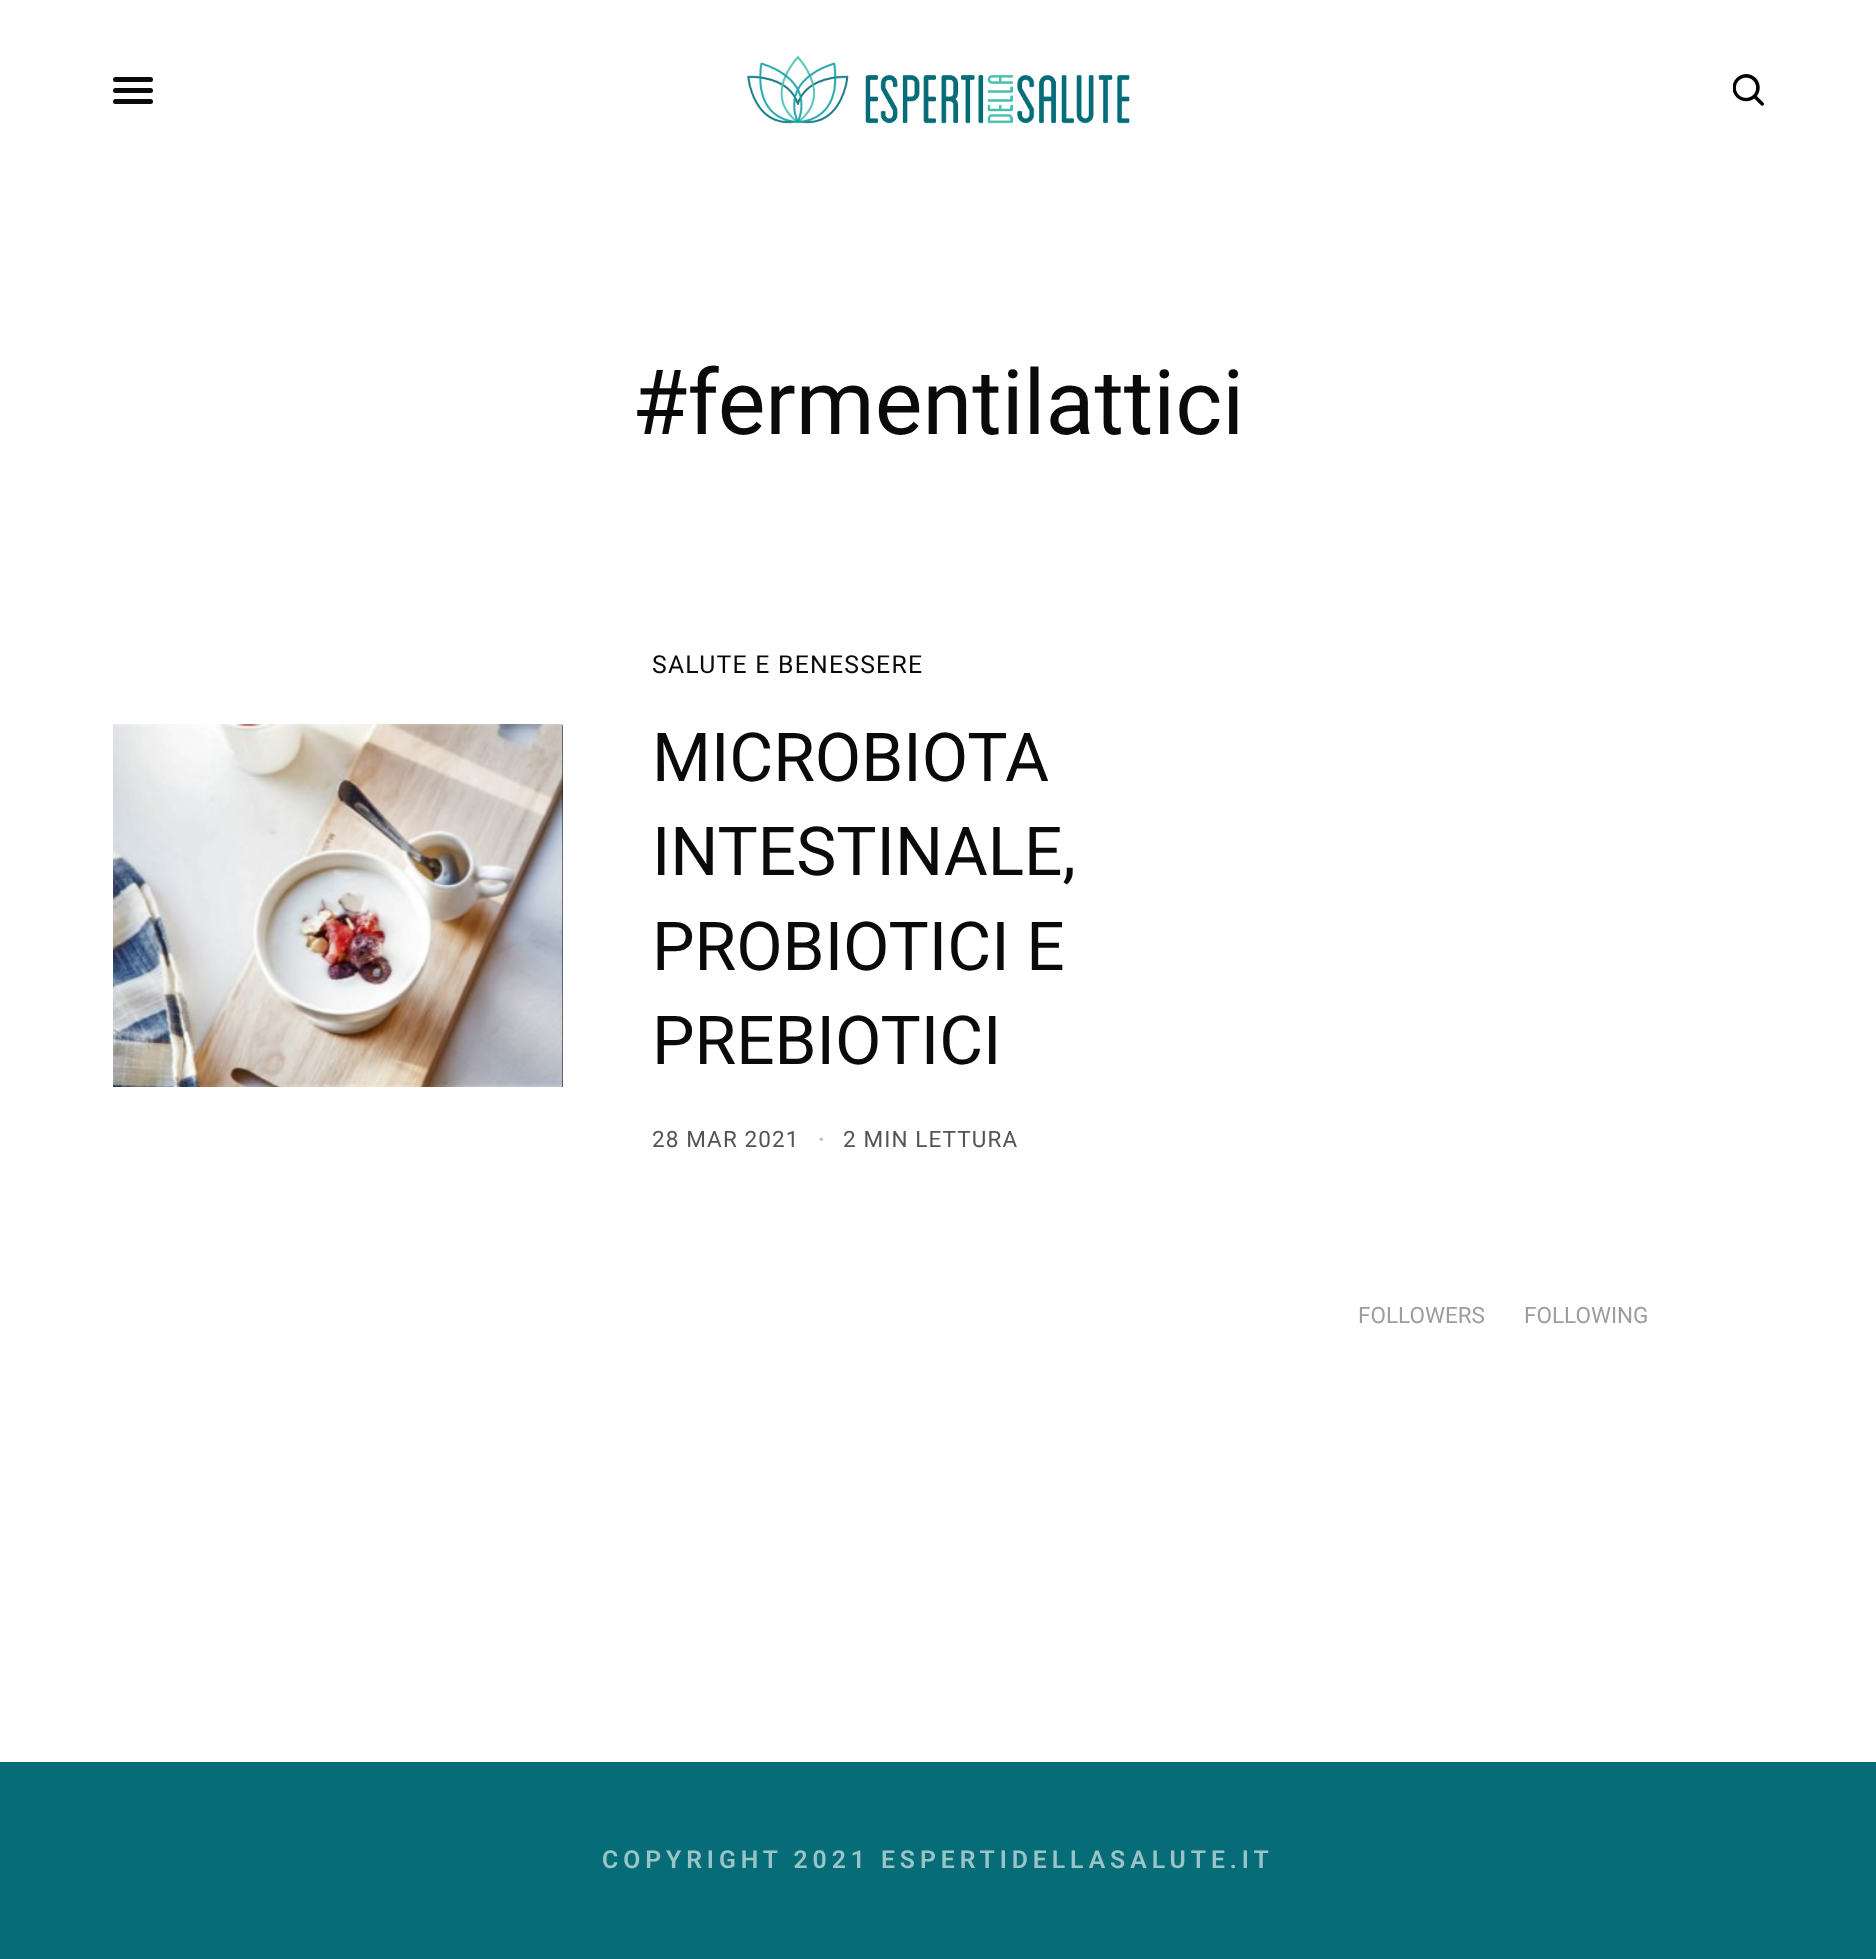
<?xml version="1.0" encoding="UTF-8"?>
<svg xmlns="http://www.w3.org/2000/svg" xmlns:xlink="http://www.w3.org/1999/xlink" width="1876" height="1959">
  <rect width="100%" height="100%" fill="#ffffff" />
  <rect x="113" y="77" width="40" height="5" rx="2.5" fill="#0a0a0a" />
  <rect x="113" y="88" width="40" height="5" rx="2.5" fill="#0a0a0a" />
  <rect x="113" y="99" width="40" height="5" rx="2.5" fill="#0a0a0a" />
  <image x="747" y="56" width="383" height="68" xlink:href="image1.png" />
  <image x="1733" y="74" width="31" height="32" xlink:href="image2.png" />
  <rect x="562" y="725" width="1" height="362" fill="#0a0a0a" />
  <image x="113" y="724" width="450" height="363" xlink:href="image3.png" />
  <rect y="1762" width="1876" height="197" fill="#066c77" />
  <text x="632" y="434" style="font-family: Roboto; font-size: 90px; fill: #0a0a0a">#fermentilattici</text>
  <text x="652" y="673" style="font-family: Roboto; font-size: 24.75px; letter-spacing: 1.25px; fill: #0a0a0a">SALUTE E BENESSERE</text>
  <text x="652" y="781" style="font-family: Roboto; font-size: 67.5px; fill: #0a0a0a">MICROBIOTA</text>
  <text x="652" y="875" style="font-family: Roboto; font-size: 67.5px; fill: #0a0a0a">INTESTINALE,</text>
  <text x="652" y="970" style="font-family: Roboto; font-size: 67.5px; fill: #0a0a0a">PROBIOTICI E</text>
  <text x="652" y="1064" style="font-family: Roboto; font-size: 67.5px; fill: #0a0a0a">PREBIOTICI</text>
  <text x="652" y="1147" style="font-family: Roboto; font-size: 22.5px; letter-spacing: 1.1px; fill: #545454">28 MAR 2021</text>
  <text x="818" y="1147" style="font-family: Roboto; font-size: 22.5px; font-weight: 600; letter-spacing: 1.1px; fill: #b5b5b5">·</text>
  <text x="843" y="1147" style="font-family: Roboto; font-size: 22.5px; letter-spacing: 1.1px; fill: #545454">2 MIN LETTURA</text>
  <text x="1358" y="1323" style="font-family: Roboto; font-size: 22.5px; fill: #9d9d9d">FOLLOWERS</text>
  <text x="1524" y="1323" style="font-family: Roboto; font-size: 22.5px; fill: #9d9d9d">FOLLOWING</text>
  <text x="602" y="1868" style="font-family: Roboto; font-size: 24.75px; font-weight: 600; letter-spacing: 4.95px; fill: #9bc4c9">COPYRIGHT 2021 ESPERTIDELLASALUTE.IT</text>
</svg>
